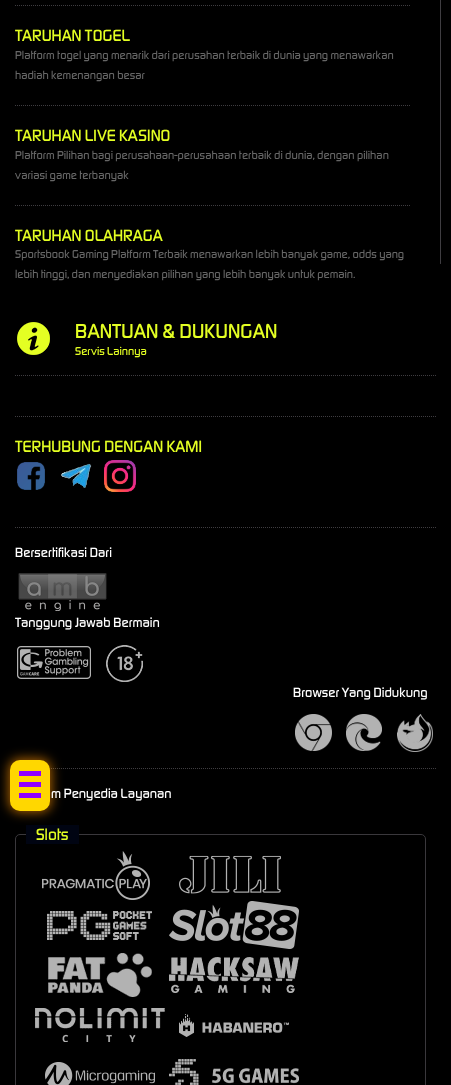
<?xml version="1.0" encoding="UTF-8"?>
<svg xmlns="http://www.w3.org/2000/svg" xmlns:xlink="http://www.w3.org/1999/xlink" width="451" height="1085">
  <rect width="100%" height="100%" fill="#000000" />
  <path d="M 15 5.5 h 396" fill="none" stroke="#3f3d41" stroke-dasharray="1 1" />
  <path d="M 15 105.5 h 396" fill="none" stroke="#3f3d41" stroke-dasharray="1 1" />
  <path d="M 15 205.5 h 396" fill="none" stroke="#3f3d41" stroke-dasharray="1 1" />
  <rect x="440" y="-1" width="1" height="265" rx="0.5" fill="#3f3d41" />
  <path d="M 15 375.5 h 421" fill="none" stroke="#3f3d41" stroke-dasharray="1 1" />
  <image x="17" y="322" width="33" height="33" xlink:href="image1.png" />
  <path d="M 15 416.5 h 421" fill="none" stroke="#3f3d41" stroke-dasharray="1 1" />
  <image x="17" y="462" width="28" height="28" xlink:href="image2.png" />
  <image x="61" y="463" width="31" height="25" xlink:href="image3.png" />
  <image x="104" y="460" width="32" height="32" xlink:href="image4.png" />
  <path d="M 15 527.5 h 421" fill="none" stroke="#3f3d41" stroke-dasharray="1 1" />
  <image x="18" y="573" width="89" height="38" xlink:href="image5.png" />
  <image x="17" y="646" width="74" height="33" xlink:href="image6.png" />
  <image x="106" y="645" width="37" height="37" xlink:href="image7.png" />
  <image x="295" y="714" width="37" height="37" xlink:href="image8.png" />
  <image x="346" y="714" width="36" height="37" xlink:href="image9.png" />
  <image x="397" y="714" width="36" height="38" xlink:href="image10.png" />
  <path d="M 15 768.5 h 421" fill="none" stroke="#3f3d41" stroke-dasharray="1 1" />
  <rect x="15.5" y="834.5" width="410" height="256" rx="4.5" fill="none" stroke="#3a383c" />
  <rect x="26" y="825" width="53" height="19" fill="#000412" />
  <image x="42" y="851" width="108" height="49" xlink:href="image11.png" />
  <image x="179" y="855" width="102" height="39" xlink:href="image12.png" />
  <image x="47" y="911" width="105" height="29" xlink:href="image13.png" />
  <image x="169" y="901" width="130" height="48" xlink:href="image14.png" />
  <image x="48" y="953" width="104" height="44" xlink:href="image15.png" />
  <image x="169" y="957" width="130" height="36" xlink:href="image16.png" />
  <image x="35" y="1008" width="130" height="34" xlink:href="image17.png" />
  <image x="179" y="1014" width="110" height="23" xlink:href="image18.png" />
  <image x="45" y="1062" width="110" height="23" xlink:href="image19.png" />
  <image x="169" y="1059" width="130" height="26" xlink:href="image20.png" />
  <rect x="9" y="759" width="42" height="53" rx="11" fill="#ff9100" fill-opacity="0.7" filter="blur(6px)" />
  <rect x="10" y="760" width="40" height="51" rx="10" fill="#ffd700" />
  <rect x="19" y="771" width="22" height="5" fill="#8f00ff" />
  <rect x="19" y="782" width="22" height="5" fill="#8f00ff" />
  <rect x="19" y="793" width="22" height="5" fill="#8f00ff" />
  <text x="15" y="41" style="font-family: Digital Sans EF; font-size: 17px; font-weight: 500; fill: #e4ff23">TARUHAN TOGEL</text>
  <text x="15" y="59" style="font-family: Digital Sans EF; font-size: 12px; font-weight: 500; fill: #666666">Platform togel yang menarik dari perusahan terbaik di dunia yang menawarkan</text>
  <text x="15" y="79" style="font-family: Digital Sans EF; font-size: 12px; font-weight: 500; fill: #666666">hadiah kemenangan besar</text>
  <text x="15" y="141" style="font-family: Digital Sans EF; font-size: 17px; font-weight: 500; fill: #e4ff23">TARUHAN LIVE KASINO</text>
  <text x="15" y="159" style="font-family: Digital Sans EF; font-size: 12px; font-weight: 500; fill: #666666">Platform Pilihan bagi perusahaan-perusahaan terbaik di dunia, dengan pilihan</text>
  <text x="15" y="179" style="font-family: Digital Sans EF; font-size: 12px; font-weight: 500; fill: #666666">variasi game terbanyak</text>
  <text x="15" y="241" style="font-family: Digital Sans EF; font-size: 17px; font-weight: 500; fill: #e4ff23">TARUHAN OLAHRAGA</text>
  <text x="15" y="258" style="font-family: Digital Sans EF; font-size: 12px; font-weight: 500; fill: #666666">Sportsbook Gaming Platform Terbaik menawarkan lebih banyak game, odds yang</text>
  <text x="15" y="278" style="font-family: Digital Sans EF; font-size: 12px; font-weight: 500; fill: #666666">lebih tinggi, dan menyediakan pilihan yang lebih banyak untuk pemain.</text>
  <text x="75" y="338" style="font-family: Digital Sans EF; font-size: 21px; font-weight: 500; fill: #e4ff23">BANTUAN &amp; DUKUNGAN</text>
  <text x="75" y="355" style="font-family: Digital Sans EF; font-size: 12px; font-weight: 500; fill: #e4ff23">Servis Lainnya</text>
  <text x="15" y="452" style="font-family: Digital Sans EF; font-size: 17px; font-weight: 500; fill: #e4ff23">TERHUBUNG DENGAN KAMI</text>
  <text x="15" y="557" style="font-family: Digital Sans EF; font-size: 14px; font-weight: 500; fill: #ffffff">Bersertifikasi Dari</text>
  <text x="15" y="627" style="font-family: Digital Sans EF; font-size: 14px; font-weight: 500; fill: #ffffff">Tanggung Jawab Bermain</text>
  <text x="293" y="697" style="font-family: Digital Sans EF; font-size: 14px; font-weight: 500; fill: #ffffff">Browser Yang Didukung</text>
  <text x="51" y="798" style="font-family: Digital Sans EF; font-size: 14px; font-weight: 500; fill: #ffffff">m Penyedia Layanan</text>
  <text x="36" y="840" style="font-family: Digital Sans EF; font-size: 17px; font-weight: 500; fill: #e4ff23">Slots</text>
</svg>
